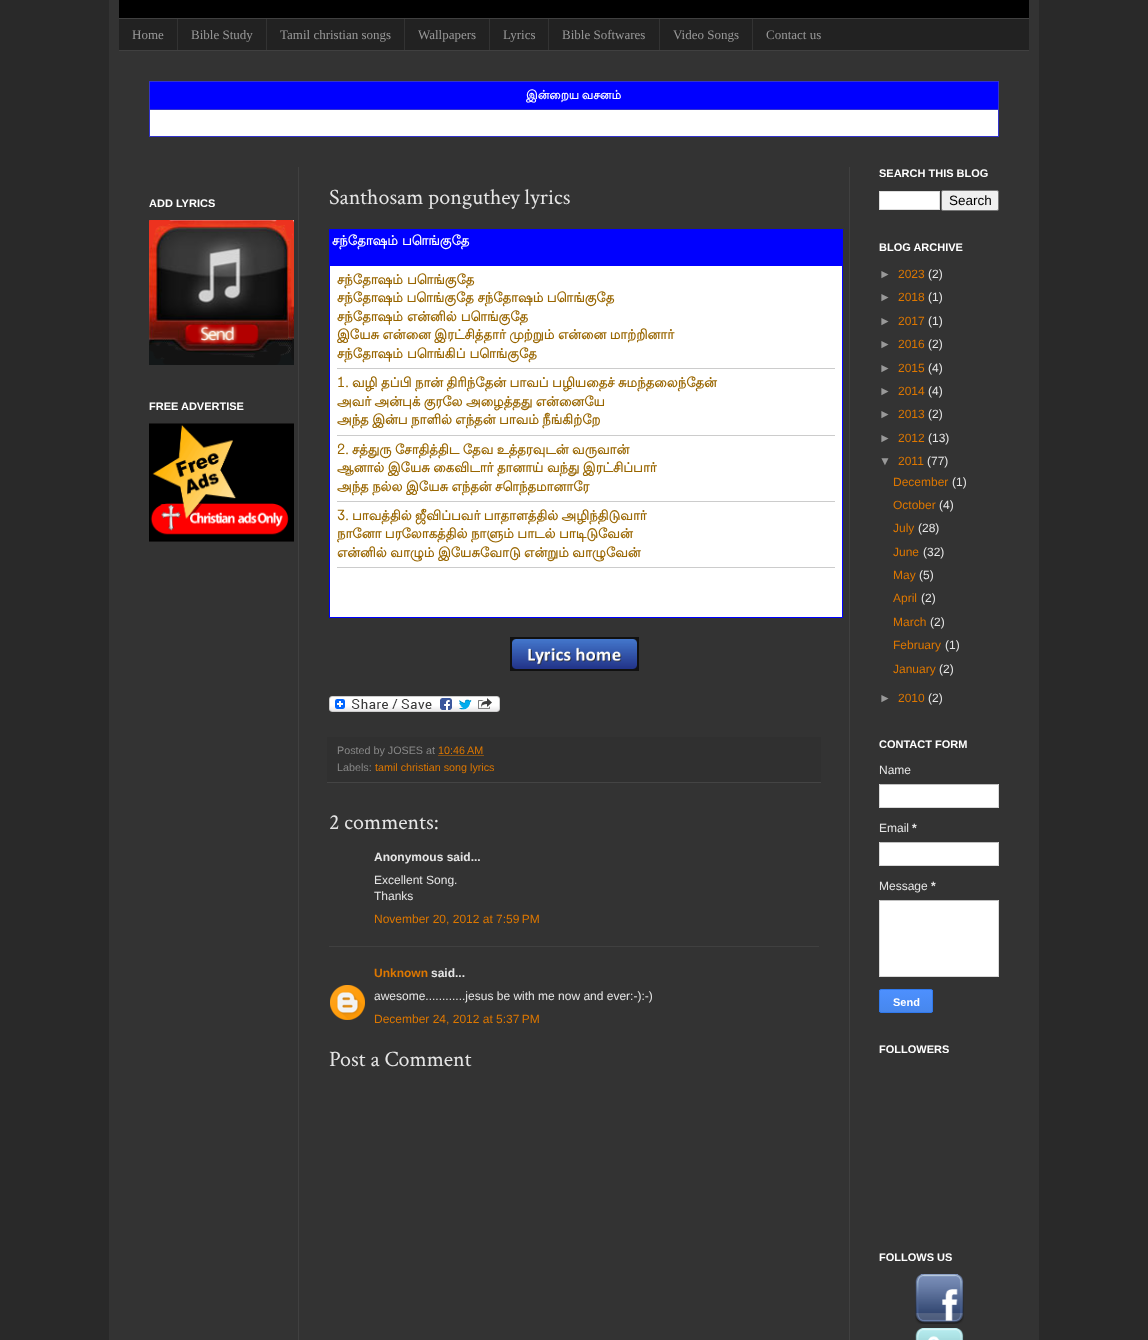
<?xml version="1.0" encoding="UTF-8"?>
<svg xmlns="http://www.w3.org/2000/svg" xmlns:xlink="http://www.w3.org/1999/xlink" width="1148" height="1340">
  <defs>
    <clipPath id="clip1"><rect x="879" y="989" width="54" height="24" rx="2" /></clipPath>
    <linearGradient id="g1" gradientUnits="userSpaceOnUse" x1="906" y1="990" x2="906" y2="1012"><stop offset="0" stop-color="#4d90fe" /><stop offset="1" stop-color="#4787ed" /></linearGradient>
  </defs>
  <rect width="100%" height="100%" fill="#292929" />
  <rect x="109" width="930" height="1340" fill="#333333" />
  <rect x="119" width="910" height="18" fill="#000000" />
  <rect x="119" y="19" width="910" height="31" fill="#222222" />
  <rect x="119" y="18" width="910" height="1" fill="#404040" />
  <rect x="119" y="50" width="910" height="1" fill="#404040" />
  <rect x="177" y="19" width="1" height="31" fill="#333333" />
  <rect x="266" y="19" width="1" height="31" fill="#333333" />
  <rect x="404" y="19" width="1" height="31" fill="#333333" />
  <rect x="489" y="19" width="1" height="31" fill="#333333" />
  <rect x="548" y="19" width="1" height="31" fill="#333333" />
  <rect x="659" y="19" width="1" height="31" fill="#333333" />
  <rect x="752" y="19" width="1" height="31" fill="#333333" />
  <rect x="150" y="82" width="848" height="27" fill="#0000ff" />
  <rect x="149" y="81" width="850" height="1" fill="#3333cc" />
  <rect x="998" y="81" width="1" height="28" fill="#3333cc" />
  <rect x="149" y="81" width="1" height="28" fill="#3333cc" />
  <rect x="149.5" y="109.5" width="849" height="27" fill="#ffffff" stroke="#3333cc" />
  <rect x="298" y="167" width="1" height="1173" fill="#404040" />
  <rect x="849" y="167" width="1" height="1173" fill="#404040" />
  <image x="149" y="220" width="145" height="145" xlink:href="image1.png" />
  <image x="149" y="423" width="145" height="119" xlink:href="image2.png" />
  <rect x="329" y="229" width="514" height="36" fill="#0000ff" />
  <rect x="329.5" y="265.5" width="513" height="352" fill="#ffffff" stroke="#0000ff" />
  <rect x="337" y="368" width="498" height="1" fill="#cccccc" />
  <rect x="337" y="435" width="498" height="1" fill="#cccccc" />
  <rect x="337" y="501" width="498" height="1" fill="#cccccc" />
  <rect x="337" y="567" width="498" height="1" fill="#cccccc" />
  <rect x="510" y="637" width="129" height="34" fill="#111111" />
  <image x="512" y="639" width="125" height="30" xlink:href="image3.png" />
  <image x="329" y="696" width="171" height="16" xlink:href="image4.png" />
  <rect x="327" y="737" width="494" height="45" fill="#303030" />
  <rect x="327" y="782" width="494" height="1" fill="#444444" />
  <path d="M 438.5 755.5 h 45.5" fill="none" stroke="#dd7700" stroke-dasharray="1 1" />
  <rect x="329" y="946" width="490" height="1" fill="#404040" />
  <image x="330" y="985" width="35" height="35" xlink:href="image5.png" />
  <rect x="879.5" y="191.5" width="60" height="18" fill="#ffffff" stroke="#dddddd" />
  <rect x="941.5" y="190.5" width="57" height="20" rx="1.5" fill="#efefef" stroke="#767676" />
  <rect x="880" y="785" width="118" height="22" fill="#ffffff" />
  <rect x="879" y="784" width="120" height="1" fill="#c0c0c0" />
  <rect x="998" y="784" width="1" height="24" fill="#d9d9d9" />
  <rect x="879" y="807" width="120" height="1" fill="#d9d9d9" />
  <rect x="879" y="784" width="1" height="24" fill="#d9d9d9" />
  <rect x="880" y="843" width="118" height="22" fill="#ffffff" />
  <rect x="879" y="842" width="120" height="1" fill="#c0c0c0" />
  <rect x="998" y="842" width="1" height="24" fill="#d9d9d9" />
  <rect x="879" y="865" width="120" height="1" fill="#d9d9d9" />
  <rect x="879" y="842" width="1" height="24" fill="#d9d9d9" />
  <rect x="880" y="901" width="118" height="75" fill="#ffffff" />
  <rect x="879" y="900" width="120" height="1" fill="#c0c0c0" />
  <rect x="998" y="900" width="1" height="77" fill="#d9d9d9" />
  <rect x="879" y="976" width="120" height="1" fill="#d9d9d9" />
  <rect x="879" y="900" width="1" height="77" fill="#d9d9d9" />
  <g clip-path="url(#clip1)">
    <rect x="879" y="990" width="54" height="22" fill="url(#g1)" />
  </g>
  <rect x="879.5" y="989.5" width="53" height="23" rx="1.5" fill="none" stroke="#3079ed" />
  <image x="915" y="1274" width="49" height="50" xlink:href="image6.png" />
  <image x="915" y="1328" width="49" height="12" xlink:href="image7.png" />
  <text x="132" y="39" style="font-family: Liberation Serif; font-size: 13px; fill: #999999">Home</text>
  <text x="191" y="39" style="font-family: Liberation Serif; font-size: 13px; fill: #999999">Bible Study</text>
  <text x="280" y="39" style="font-family: Liberation Serif; font-size: 13px; fill: #999999">Tamil christian songs</text>
  <text x="418" y="39" style="font-family: Liberation Serif; font-size: 13px; fill: #999999">Wallpapers</text>
  <text x="503" y="39" style="font-family: Liberation Serif; font-size: 13px; fill: #999999">Lyrics</text>
  <text x="562" y="39" style="font-family: Liberation Serif; font-size: 13px; fill: #999999">Bible Softwares</text>
  <text x="673" y="39" style="font-family: Liberation Serif; font-size: 13px; fill: #999999">Video Songs</text>
  <text x="766" y="39" style="font-family: Liberation Serif; font-size: 13px; fill: #999999">Contact us</text>
  <text x="526" y="99" word-spacing="-1" style="font-family: Lohit Tamil; font-size: 12px; font-weight: bold; fill: #ffffff">இன்றைய வசனம்</text>
  <text x="149" y="207" style="font-family: Liberation Sans; font-size: 11px; font-weight: bold; fill: #ffffff">ADD LYRICS</text>
  <text x="149" y="410" style="font-family: Liberation Sans; font-size: 11px; font-weight: bold; fill: #ffffff">FREE ADVERTISE</text>
  <text x="329" y="204" style="font-family: Crimson Text; font-size: 22px; fill: #e5e5e5">Santhosam ponguthey lyrics</text>
  <text x="332" y="245" style="font-family: Lohit Tamil; font-size: 13.2px; font-weight: bold; fill: #ffffff">சந்தோஷம் பொங்குதே</text>
  <text x="337" y="284" style="font-family: Lohit Tamil; font-size: 13.2px; font-weight: bold; fill: #996600">சந்தோஷம் பொங்குதே</text>
  <text x="337" y="302" word-spacing="-0.5" style="font-family: Lohit Tamil; font-size: 13.2px; font-weight: bold; fill: #996600">சந்தோஷம் பொங்குதே சந்தோஷம் பொங்குதே</text>
  <text x="337" y="321" style="font-family: Lohit Tamil; font-size: 13.2px; font-weight: bold; fill: #996600">சந்தோஷம் என்னில் பொங்குதே</text>
  <text x="337" y="339" word-spacing="-0.5" style="font-family: Lohit Tamil; font-size: 13.2px; font-weight: bold; fill: #996600">இயேசு என்னை இரட்சித்தார் முற்றும் என்னை மாற்றினார்</text>
  <text x="337" y="358" style="font-family: Lohit Tamil; font-size: 13.2px; font-weight: bold; fill: #996600">சந்தோஷம் பொங்கிப் பொங்குதே</text>
  <text x="337" y="387" word-spacing="-0.5" style="font-family: Lohit Tamil; font-size: 13.2px; font-weight: bold; fill: #996600">1. வழி தப்பி நான் திரிந்தேன் பாவப் பழியதைச் சுமந்தலைந்தேன்</text>
  <text x="337" y="406" word-spacing="-0.5" style="font-family: Lohit Tamil; font-size: 13.2px; font-weight: bold; fill: #996600">அவர் அன்புக் குரலே அழைத்தது என்னையே</text>
  <text x="337" y="424" word-spacing="-0.5" style="font-family: Lohit Tamil; font-size: 13.2px; font-weight: bold; fill: #996600">அந்த இன்ப நாளில் எந்தன் பாவம் நீங்கிற்றே</text>
  <text x="337" y="454" word-spacing="-0.5" style="font-family: Lohit Tamil; font-size: 13.2px; font-weight: bold; fill: #996600">2. சத்துரு சோதித்திட தேவ உத்தரவுடன் வருவான்</text>
  <text x="337" y="472" word-spacing="-0.5" style="font-family: Lohit Tamil; font-size: 13.2px; font-weight: bold; fill: #996600">ஆனால் இயேசு கைவிடார் தானாய் வந்து இரட்சிப்பார்</text>
  <text x="337" y="491" word-spacing="-0.5" style="font-family: Lohit Tamil; font-size: 13.2px; font-weight: bold; fill: #996600">அந்த நல்ல இயேசு எந்தன் சொந்தமானாரே</text>
  <text x="337" y="520" word-spacing="-0.5" style="font-family: Lohit Tamil; font-size: 13.2px; font-weight: bold; fill: #996600">3. பாவத்தில் ஜீவிப்பவர் பாதாளத்தில் அழிந்திடுவார்</text>
  <text x="337" y="538" word-spacing="-0.5" style="font-family: Lohit Tamil; font-size: 13.2px; font-weight: bold; fill: #996600">நானோ பரலோகத்தில் நாளும் பாடல் பாடிடுவேன்</text>
  <text x="337" y="557" word-spacing="-0.5" style="font-family: Lohit Tamil; font-size: 13.2px; font-weight: bold; fill: #996600">என்னில் வாழும் இயேசுவோடு என்றும் வாழுவேன்</text>
  <text x="337" y="754" style="font-family: Liberation Sans; font-size: 10.75px; fill: #888888">Posted by JOSES at</text>
  <text x="438" y="754" style="font-family: Liberation Sans; font-size: 10.75px; fill: #dd7700">10:46 AM</text>
  <text x="337" y="771" style="font-family: Liberation Sans; font-size: 10.75px; fill: #888888">Labels:</text>
  <text x="375" y="771" style="font-family: Liberation Sans; font-size: 10.75px; fill: #dd7700">tamil christian song lyrics</text>
  <text x="329" y="829" style="font-family: Crimson Text; font-size: 22px; fill: #e5e5e5">2 comments:</text>
  <text x="374" y="861" style="font-family: Liberation Sans; font-size: 12px; font-weight: bold; fill: #e5e5e5">Anonymous said...</text>
  <text x="374" y="884" style="font-family: Liberation Sans; font-size: 12px; fill: #e5e5e5">Excellent Song.</text>
  <text x="374" y="900" style="font-family: Liberation Sans; font-size: 12px; fill: #e5e5e5">Thanks</text>
  <text x="374" y="923" style="font-family: Liberation Sans; font-size: 12px; fill: #dd7700">November 20, 2012 at 7:59 PM</text>
  <text x="374" y="977" style="font-family: Liberation Sans; font-size: 12px; font-weight: bold; fill: #dd7700">Unknown</text>
  <text x="431" y="977" style="font-family: Liberation Sans; font-size: 12px; font-weight: bold; fill: #e5e5e5">said...</text>
  <text x="374" y="1000" style="font-family: Liberation Sans; font-size: 12px; fill: #e5e5e5">awesome............jesus be with me now and ever:-):-)</text>
  <text x="374" y="1023" style="font-family: Liberation Sans; font-size: 12px; fill: #dd7700">December 24, 2012 at 5:37 PM</text>
  <text x="329" y="1066" style="font-family: Crimson Text; font-size: 22px; fill: #e5e5e5">Post a Comment</text>
  <text x="879" y="177" style="font-family: Liberation Sans; font-size: 11px; font-weight: bold; fill: #ffffff">SEARCH THIS BLOG</text>
  <text x="949" y="205" style="font-family: Liberation Sans; font-size: 13.5px; fill: #000000">Search</text>
  <text x="879" y="251" style="font-family: Liberation Sans; font-size: 11px; font-weight: bold; fill: #ffffff">BLOG ARCHIVE</text>
  <text x="879" y="278" style="font-family: Liberation Sans; font-size: 12px; fill: #999999">►</text>
  <text x="898" y="278" style="font-family: Liberation Sans; font-size: 12px; fill: #dd7700">2023</text>
  <text x="928" y="278" style="font-family: Liberation Sans; font-size: 12px; fill: #e5e5e5">(2)</text>
  <text x="879" y="301" style="font-family: Liberation Sans; font-size: 12px; fill: #999999">►</text>
  <text x="898" y="301" style="font-family: Liberation Sans; font-size: 12px; fill: #dd7700">2018</text>
  <text x="928" y="301" style="font-family: Liberation Sans; font-size: 12px; fill: #e5e5e5">(1)</text>
  <text x="879" y="325" style="font-family: Liberation Sans; font-size: 12px; fill: #999999">►</text>
  <text x="898" y="325" style="font-family: Liberation Sans; font-size: 12px; fill: #dd7700">2017</text>
  <text x="928" y="325" style="font-family: Liberation Sans; font-size: 12px; fill: #e5e5e5">(1)</text>
  <text x="879" y="348" style="font-family: Liberation Sans; font-size: 12px; fill: #999999">►</text>
  <text x="898" y="348" style="font-family: Liberation Sans; font-size: 12px; fill: #dd7700">2016</text>
  <text x="928" y="348" style="font-family: Liberation Sans; font-size: 12px; fill: #e5e5e5">(2)</text>
  <text x="879" y="372" style="font-family: Liberation Sans; font-size: 12px; fill: #999999">►</text>
  <text x="898" y="372" style="font-family: Liberation Sans; font-size: 12px; fill: #dd7700">2015</text>
  <text x="928" y="372" style="font-family: Liberation Sans; font-size: 12px; fill: #e5e5e5">(4)</text>
  <text x="879" y="395" style="font-family: Liberation Sans; font-size: 12px; fill: #999999">►</text>
  <text x="898" y="395" style="font-family: Liberation Sans; font-size: 12px; fill: #dd7700">2014</text>
  <text x="928" y="395" style="font-family: Liberation Sans; font-size: 12px; fill: #e5e5e5">(4)</text>
  <text x="879" y="418" style="font-family: Liberation Sans; font-size: 12px; fill: #999999">►</text>
  <text x="898" y="418" style="font-family: Liberation Sans; font-size: 12px; fill: #dd7700">2013</text>
  <text x="928" y="418" style="font-family: Liberation Sans; font-size: 12px; fill: #e5e5e5">(2)</text>
  <text x="879" y="442" style="font-family: Liberation Sans; font-size: 12px; fill: #999999">►</text>
  <text x="898" y="442" style="font-family: Liberation Sans; font-size: 12px; fill: #dd7700">2012</text>
  <text x="928" y="442" style="font-family: Liberation Sans; font-size: 12px; fill: #e5e5e5">(13)</text>
  <text x="879" y="465" style="font-family: Liberation Sans; font-size: 12px; fill: #999999">▼</text>
  <text x="898" y="465" style="font-family: Liberation Sans; font-size: 12px; fill: #dd7700">2011</text>
  <text x="927" y="465" style="font-family: Liberation Sans; font-size: 12px; fill: #e5e5e5">(77)</text>
  <text x="893" y="486" style="font-family: Liberation Sans; font-size: 12px; fill: #dd7700">December</text>
  <text x="952" y="486" style="font-family: Liberation Sans; font-size: 12px; fill: #e5e5e5">(1)</text>
  <text x="893" y="509" style="font-family: Liberation Sans; font-size: 12px; fill: #dd7700">October</text>
  <text x="939" y="509" style="font-family: Liberation Sans; font-size: 12px; fill: #e5e5e5">(4)</text>
  <text x="893" y="532" style="font-family: Liberation Sans; font-size: 12px; fill: #dd7700">July</text>
  <text x="918" y="532" style="font-family: Liberation Sans; font-size: 12px; fill: #e5e5e5">(28)</text>
  <text x="893" y="556" style="font-family: Liberation Sans; font-size: 12px; fill: #dd7700">June</text>
  <text x="923" y="556" style="font-family: Liberation Sans; font-size: 12px; fill: #e5e5e5">(32)</text>
  <text x="893" y="579" style="font-family: Liberation Sans; font-size: 12px; fill: #dd7700">May</text>
  <text x="919" y="579" style="font-family: Liberation Sans; font-size: 12px; fill: #e5e5e5">(5)</text>
  <text x="893" y="602" style="font-family: Liberation Sans; font-size: 12px; fill: #dd7700">April</text>
  <text x="921" y="602" style="font-family: Liberation Sans; font-size: 12px; fill: #e5e5e5">(2)</text>
  <text x="893" y="626" style="font-family: Liberation Sans; font-size: 12px; fill: #dd7700">March</text>
  <text x="930" y="626" style="font-family: Liberation Sans; font-size: 12px; fill: #e5e5e5">(2)</text>
  <text x="893" y="649" style="font-family: Liberation Sans; font-size: 12px; fill: #dd7700">February</text>
  <text x="945" y="649" style="font-family: Liberation Sans; font-size: 12px; fill: #e5e5e5">(1)</text>
  <text x="893" y="673" style="font-family: Liberation Sans; font-size: 12px; fill: #dd7700">January</text>
  <text x="939" y="673" style="font-family: Liberation Sans; font-size: 12px; fill: #e5e5e5">(2)</text>
  <text x="879" y="702" style="font-family: Liberation Sans; font-size: 12px; fill: #999999">►</text>
  <text x="898" y="702" style="font-family: Liberation Sans; font-size: 12px; fill: #dd7700">2010</text>
  <text x="928" y="702" style="font-family: Liberation Sans; font-size: 12px; fill: #e5e5e5">(2)</text>
  <text x="879" y="748" style="font-family: Liberation Sans; font-size: 11px; font-weight: bold; fill: #ffffff">CONTACT FORM</text>
  <text x="879" y="774" style="font-family: Liberation Sans; font-size: 12px; fill: #e5e5e5">Name</text>
  <text x="879" y="832" style="font-family: Liberation Sans; font-size: 12px; fill: #e5e5e5">Email</text>
  <text x="912" y="832" style="font-family: Liberation Sans; font-size: 12px; font-weight: bold; fill: #e5e5e5">*</text>
  <text x="879" y="890" style="font-family: Liberation Sans; font-size: 12px; fill: #e5e5e5">Message</text>
  <text x="931" y="890" style="font-family: Liberation Sans; font-size: 12px; font-weight: bold; fill: #e5e5e5">*</text>
  <text x="893" y="1006" style="font-family: Liberation Sans; font-size: 11px; font-weight: bold; fill: #ffffff">Send</text>
  <text x="879" y="1053" style="font-family: Liberation Sans; font-size: 11px; font-weight: bold; fill: #ffffff">FOLLOWERS</text>
  <text x="879" y="1261" style="font-family: Liberation Sans; font-size: 11px; font-weight: bold; fill: #ffffff">FOLLOWS US</text>
</svg>
